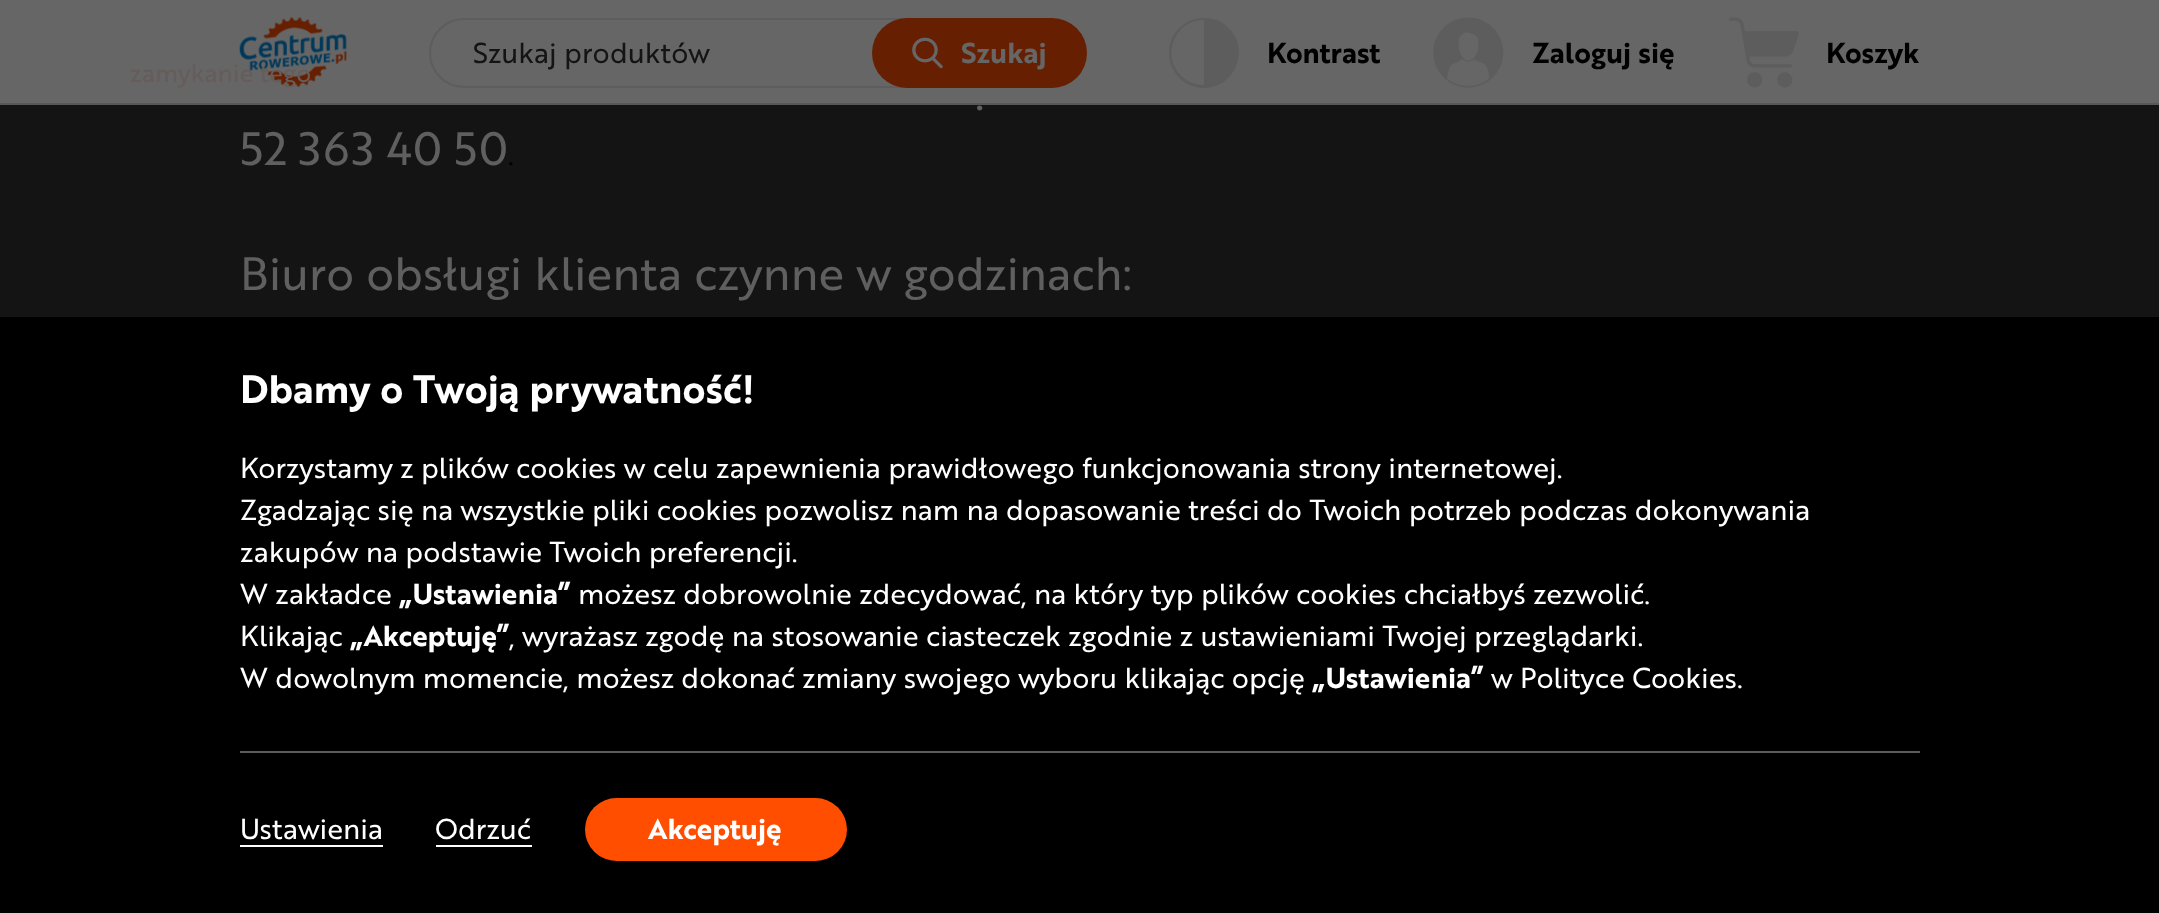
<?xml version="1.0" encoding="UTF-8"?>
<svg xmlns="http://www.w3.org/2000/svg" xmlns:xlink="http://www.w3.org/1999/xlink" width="2159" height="913">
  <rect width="100%" height="100%" fill="#141414" />
  <rect width="2159" height="103" fill="#666666" />
  <image x="239" y="17" width="108" height="70" xlink:href="image1.png" />
  <rect x="430" y="19" width="654" height="68" rx="34" fill="none" stroke="#5d5d5d" stroke-width="2" />
  <rect x="872" y="18" width="215" height="70" rx="35" fill="#661f00" />
  <image x="912" y="37" width="31" height="32" xlink:href="image2.png" />
  <path d="M 1204 18 c -8 0 -15 2 -21 7 c -27 20 -12 63 21 63 c 33 0 48 -43 21 -63 c -6 -5 -13 -7 -21 -7 z m 0 67 c -7 0 -14 -2 -20 -7 c -24 -19 -11 -58 20 -58 z" fill="#5d5d5d" />
  <image x="1433" y="17" width="71" height="71" xlink:href="image3.png" />
  <image x="1729" y="17" width="70" height="71" xlink:href="image4.png" />
  <rect y="103" width="2159" height="2" fill="#585858" />
  <rect y="317" width="2159" height="596" fill="#000000" />
  <rect x="240" y="751" width="1680" height="2" fill="#5c5c5c" />
  <rect x="240" y="845" width="143" height="2" fill="#ffffff" />
  <rect x="436" y="845" width="96" height="2" fill="#ffffff" />
  <rect x="585" y="798" width="262" height="63" rx="31.5" fill="#ff4e00" />
  <text x="473" y="63" style="font-family: 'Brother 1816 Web'; font-size: 28px; fill: #141414">Szukaj produktów</text>
  <text x="961" y="63" style="font-family: 'Brother 1816 Web'; font-size: 28px; font-weight: bold; fill: #666666">Szukaj</text>
  <text x="1267" y="63" style="font-family: 'Brother 1816 Web'; font-size: 28px; font-weight: bold; fill: #000000">Kontrast</text>
  <text x="1532" y="63" style="font-family: 'Brother 1816 Web'; font-size: 28px; font-weight: bold; fill: #000000">Zaloguj się</text>
  <text x="1826" y="63" style="font-family: 'Brother 1816 Web'; font-size: 28px; font-weight: bold; fill: #000000">Koszyk</text>
  <text x="130" y="82" style="font-family: 'Brother 1816 Web'; font-size: 24.5px; fill: #665c59">zamykanie tego</text>
  <text x="975" y="110" style="font-family: 'Brother 1816 Web'; font-size: 45.5px; fill: #5f5f5f">.</text>
  <text x="240" y="165" style="font-family: 'Brother 1816 Web'; font-size: 45.5px; fill: #5f5f5f">52 363 40 50</text>
  <text x="508" y="165" style="font-family: 'Brother 1816 Web'; font-size: 28px; fill: #000000">.</text>
  <text x="240" y="290" style="font-family: 'Brother 1816 Web'; font-size: 45.5px; fill: #5f5f5f">Biuro obsługi klienta czynne w godzinach:</text>
  <text x="240" y="403" style="font-family: 'Brother 1816 Web'; font-size: 38.5px; font-weight: bold; fill: #ffffff">Dbamy o Twoją prywatność!</text>
  <text x="240" y="478" style="font-family: 'Brother 1816 Web'; font-size: 28px; fill: #ffffff">Korzystamy z plików cookies w celu zapewnienia prawidłowego funkcjonowania strony internetowej.</text>
  <text x="240" y="520" style="font-family: 'Brother 1816 Web'; font-size: 28px; fill: #ffffff">Zgadzając się na wszystkie pliki cookies pozwolisz nam na dopasowanie treści do Twoich potrzeb podczas dokonywania</text>
  <text x="240" y="562" style="font-family: 'Brother 1816 Web'; font-size: 28px; fill: #ffffff">zakupów na podstawie Twoich preferencji.</text>
  <text x="240" y="604" style="font-family: 'Brother 1816 Web'; font-size: 28px; fill: #ffffff">W zakładce</text>
  <text x="399" y="604" style="font-family: 'Brother 1816 Web'; font-size: 28px; font-weight: bold; fill: #ffffff">„Ustawienia”</text>
  <text x="578" y="604" style="font-family: 'Brother 1816 Web'; font-size: 28px; fill: #ffffff">możesz dobrowolnie zdecydować, na który typ plików cookies chciałbyś zezwolić.</text>
  <text x="240" y="646" style="font-family: 'Brother 1816 Web'; font-size: 28px; fill: #ffffff">Klikając</text>
  <text x="350" y="646" style="font-family: 'Brother 1816 Web'; font-size: 28px; font-weight: bold; fill: #ffffff">„Akceptuję”</text>
  <text x="509" y="646" style="font-family: 'Brother 1816 Web'; font-size: 28px; fill: #ffffff">, wyrażasz zgodę na stosowanie ciasteczek zgodnie z ustawieniami Twojej przeglądarki.</text>
  <text x="240" y="688" style="font-family: 'Brother 1816 Web'; font-size: 28px; fill: #ffffff">W dowolnym momencie, możesz dokonać zmiany swojego wyboru klikając opcję</text>
  <text x="1312" y="688" style="font-family: 'Brother 1816 Web'; font-size: 28px; font-weight: bold; fill: #ffffff">„Ustawienia”</text>
  <text x="1491" y="688" style="font-family: 'Brother 1816 Web'; font-size: 28px; fill: #ffffff">w Polityce Cookies.</text>
  <text x="240" y="839" style="font-family: 'Brother 1816 Web'; font-size: 28px; fill: #ffffff">Ustawienia</text>
  <text x="435" y="839" style="font-family: 'Brother 1816 Web'; font-size: 28px; fill: #ffffff">Odrzuć</text>
  <text x="648" y="839" style="font-family: 'Brother 1816 Web'; font-size: 28px; font-weight: bold; fill: #ffffff">Akceptuję</text>
</svg>
